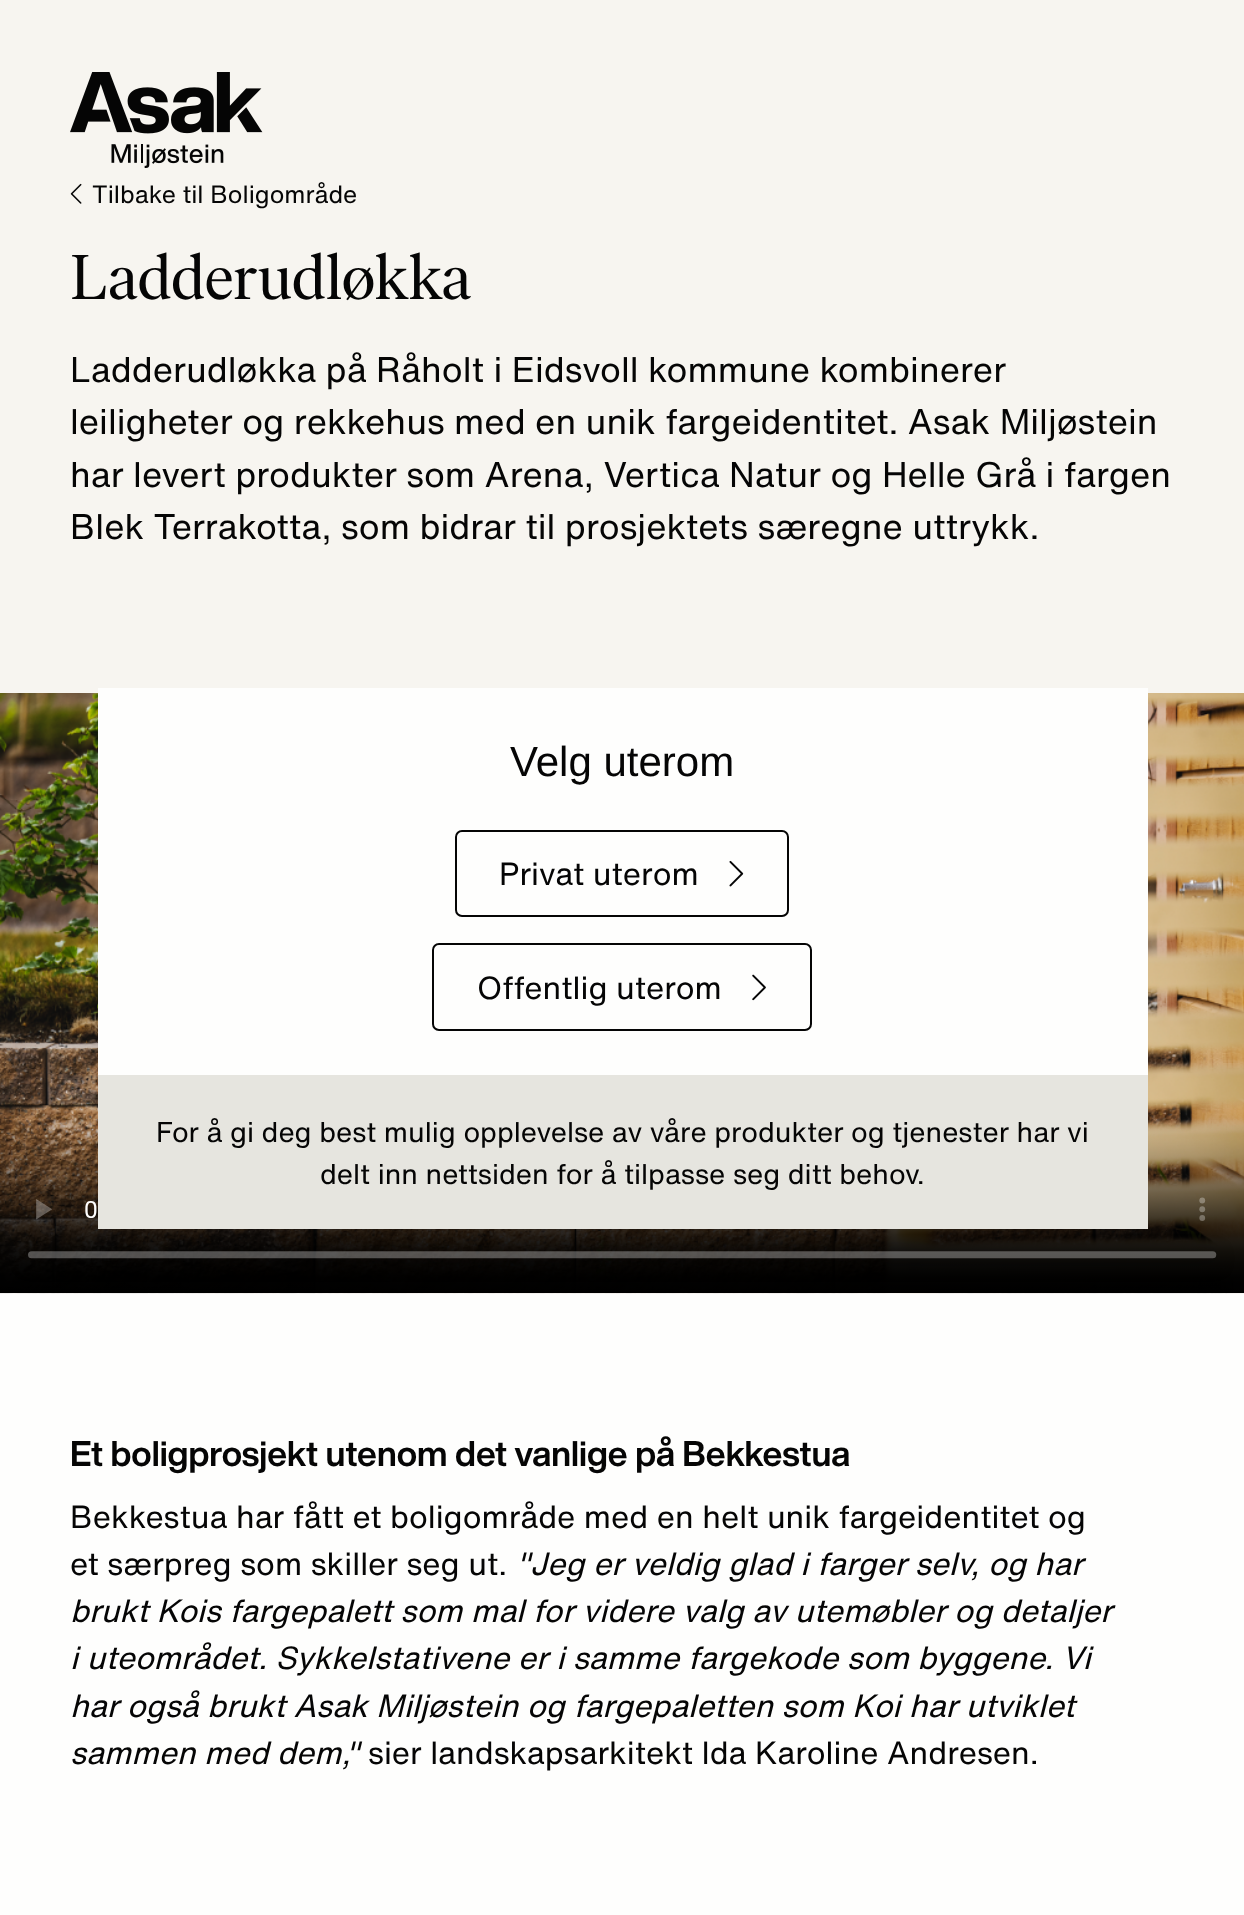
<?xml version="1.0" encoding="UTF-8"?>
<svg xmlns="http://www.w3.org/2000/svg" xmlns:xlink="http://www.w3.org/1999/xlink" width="1244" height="1915">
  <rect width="100%" height="100%" fill="#f7f5f0" />
  <image x="70" y="72" width="193" height="96" xlink:href="image1.png" />
  <image x="70" y="183" width="12" height="21" xlink:href="image2.png" />
  <rect y="1293" width="1244" height="622" fill="#fefefd" />
  <image x="0" y="693" width="1244" height="601" xlink:href="image3.png" />
  <rect x="98" y="688" width="1050" height="387" fill="#fefefd" />
  <rect x="456" y="831" width="332" height="85" rx="6" fill="none" stroke="#050505" stroke-width="2" />
  <image x="729" y="860" width="15" height="27" xlink:href="image4.png" />
  <rect x="433" y="944" width="378" height="86" rx="6" fill="none" stroke="#050505" stroke-width="2" />
  <image x="752" y="974" width="14" height="27" xlink:href="image5.png" />
  <rect x="98" y="1075" width="1050" height="154" fill="#e6e5df" />
  <text x="92" y="203" style="font-family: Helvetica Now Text; font-size: 24.5px; fill: #050505">Tilbake til Boligområde</text>
  <text x="70" y="299" style="font-family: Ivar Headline; font-size: 63px; fill: #050505">Ladderudløkka</text>
  <text x="70" y="382" style="font-family: Helvetica Now Text; font-size: 35px; fill: #050505">Ladderudløkka på Råholt i Eidsvoll kommune kombinerer</text>
  <text x="70" y="434" style="font-family: Helvetica Now Text; font-size: 35px; fill: #050505">leiligheter og rekkehus med en unik fargeidentitet. Asak Miljøstein</text>
  <text x="70" y="487" style="font-family: Helvetica Now Text; font-size: 35px; fill: #050505">har levert produkter som Arena, Vertica Natur og Helle Grå i fargen</text>
  <text x="70" y="539" style="font-family: Helvetica Now Text; font-size: 35px; fill: #050505">Blek Terrakotta, som bidrar til prosjektets særegne uttrykk.</text>
  <text x="70" y="1466" style="font-family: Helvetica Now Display; font-size: 35px; font-weight: bold; fill: #050505">Et boligprosjekt utenom det vanlige på Bekkestua</text>
  <text x="70" y="1528" style="font-family: Helvetica Now Text; font-size: 31.5px; fill: #050505">Bekkestua har fått et boligområde med en helt unik fargeidentitet og</text>
  <text x="70" y="1575" style="font-family: Helvetica Now Text; font-size: 31.5px; fill: #050505">et særpreg som skiller seg ut.</text>
  <text x="516" y="1575" style="font-family: Helvetica Now Text; font-size: 31.5px; font-style: italic; fill: #050505">"Jeg er veldig glad i farger selv, og har</text>
  <text x="70" y="1622" style="font-family: Helvetica Now Text; font-size: 31.5px; font-style: italic; fill: #050505">brukt Kois fargepalett som mal for videre valg av utemøbler og detaljer</text>
  <text x="70" y="1669" style="font-family: Helvetica Now Text; font-size: 31.5px; font-style: italic; fill: #050505">i uteområdet. Sykkelstativene er i samme fargekode som byggene. Vi</text>
  <text x="70" y="1717" style="font-family: Helvetica Now Text; font-size: 31.5px; font-style: italic; fill: #050505">har også brukt Asak Miljøstein og fargepaletten som Koi har utviklet</text>
  <text x="70" y="1764" style="font-family: Helvetica Now Text; font-size: 31.5px; font-style: italic; fill: #050505">sammen med dem,"</text>
  <text x="368" y="1764" style="font-family: Helvetica Now Text; font-size: 31.5px; fill: #050505">sier landskapsarkitekt Ida Karoline Andresen.</text>
  <text x="510" y="776" style="font-family: Liberation Sans; font-size: 42px; fill: #050505">Velg uterom</text>
  <text x="499" y="885" style="font-family: Helvetica Now Text; font-size: 31.5px; fill: #050505">Privat uterom</text>
  <text x="477" y="999" style="font-family: Helvetica Now Text; font-size: 31.5px; fill: #050505">Offentlig uterom</text>
  <text x="156" y="1142" style="font-family: Helvetica Now Text; font-size: 28px; fill: #050505">For å gi deg best mulig opplevelse av våre produkter og tjenester har vi</text>
  <text x="320" y="1184" style="font-family: Helvetica Now Text; font-size: 28px; fill: #050505">delt inn nettsiden for å tilpasse seg ditt behov.</text>
</svg>
